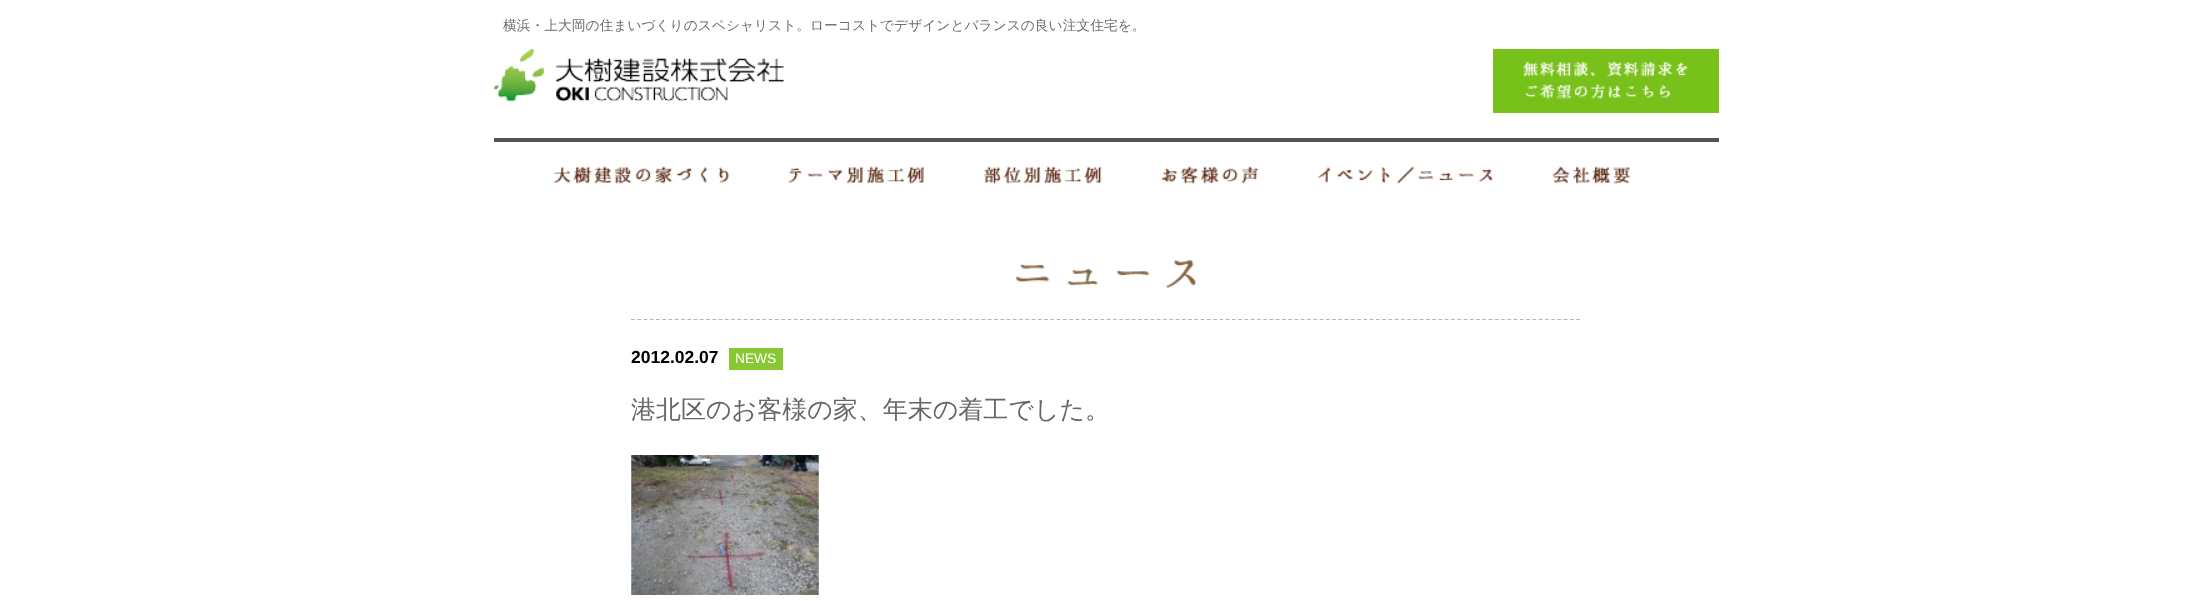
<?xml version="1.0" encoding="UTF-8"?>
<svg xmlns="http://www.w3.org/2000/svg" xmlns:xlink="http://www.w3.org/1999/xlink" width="2211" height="601">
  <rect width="100%" height="100%" fill="#ffffff" />
  <rect x="494" y="138" width="1225" height="4" fill="#535353" />
  <image x="493" y="48" width="291" height="54" xlink:href="image1.png" />
  <rect x="1493" y="49" width="226" height="64" fill="#78c01a" />
  <image x="1522" y="61" width="166" height="38" xlink:href="image2.png" />
  <image x="553" y="166" width="176" height="18" xlink:href="image3.png" />
  <image x="788" y="166" width="136" height="18" xlink:href="image4.png" />
  <image x="983" y="166" width="119" height="18" xlink:href="image5.png" />
  <image x="1161" y="166" width="97" height="18" xlink:href="image6.png" />
  <image x="1317" y="166" width="176" height="18" xlink:href="image7.png" />
  <image x="1552" y="166" width="78" height="18" xlink:href="image8.png" />
  <image x="1016" y="260" width="181" height="28" xlink:href="image9.png" />
  <path d="M 631 319.5 h 950" fill="none" stroke="#b5b5b5" stroke-width="1.2" stroke-dasharray="3.75 2.51" />
  <rect x="729" y="348" width="54" height="22" fill="#8ac734" />
  <image x="631" y="455" width="188" height="140" xlink:href="image10.png" />
  <text x="503" y="30" style="font-family: WenQuanYi Zen Hei; font-size: 13.75px; font-weight: 500; fill: #6e6e6e">横浜・上大岡の住まいづくりのスペシャリスト。ローコストでデザインとバランスの良い注文住宅を。</text>
  <text x="631" y="363" style="font-family: Liberation Sans; font-size: 17.5px; font-weight: bold; fill: #000000">2012.02.07</text>
  <text x="735" y="363" style="font-family: Liberation Sans; font-size: 13.75px; fill: #ffffff">NEWS</text>
  <text x="631" y="418" style="font-family: WenQuanYi Zen Hei; font-size: 25px; font-weight: 500; fill: #666666">港北区のお客様の家、年末の着工でした。</text>
</svg>
